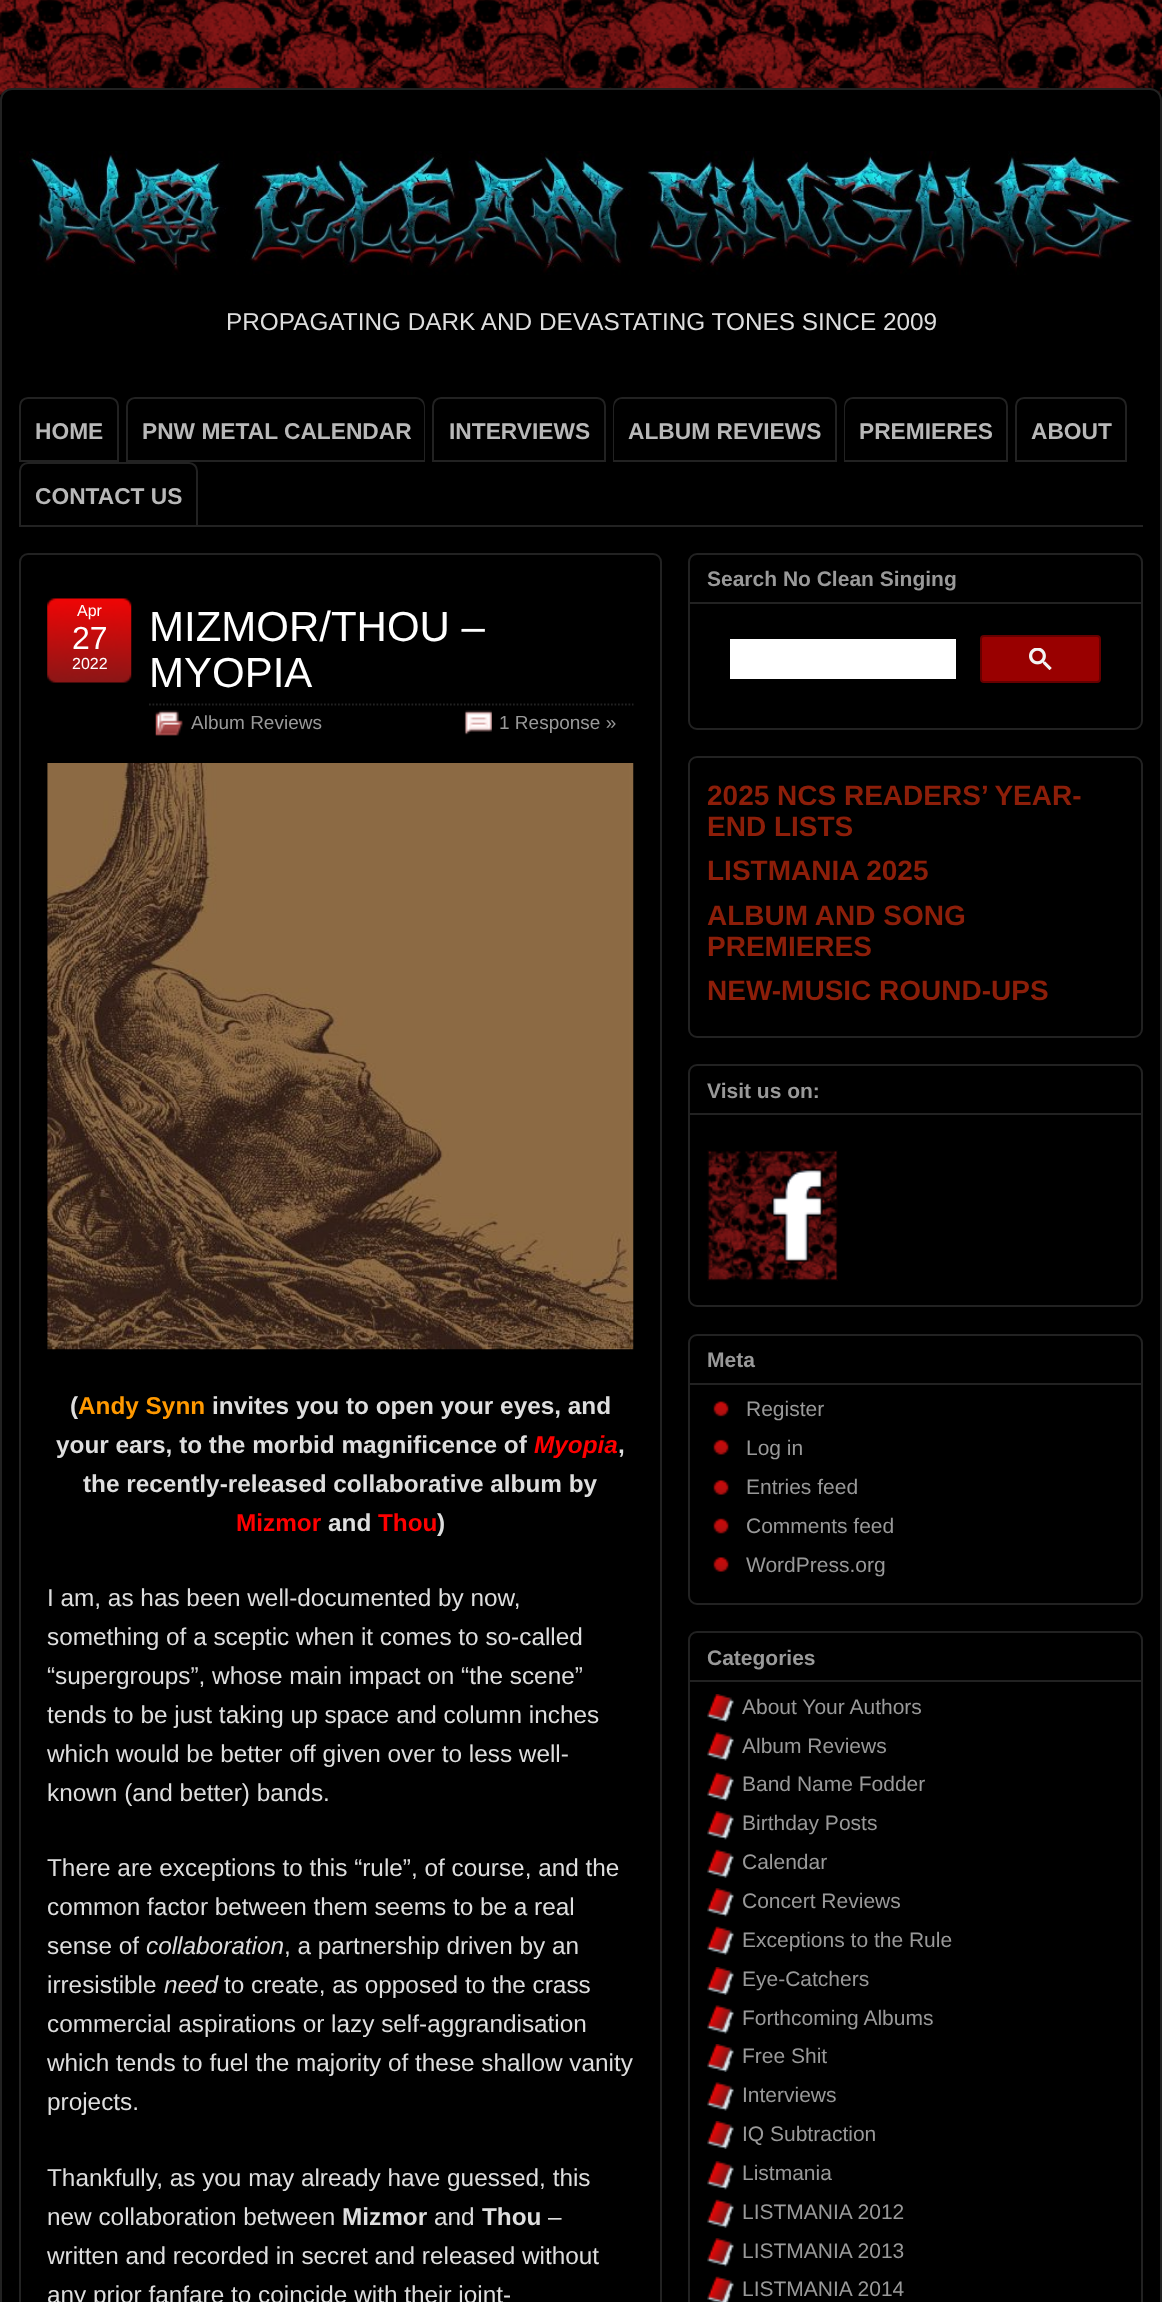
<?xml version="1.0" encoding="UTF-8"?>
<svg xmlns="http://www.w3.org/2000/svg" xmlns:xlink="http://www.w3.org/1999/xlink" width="1162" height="2302">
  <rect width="100%" height="100%" fill="#ffffff" />
  <image x="0" y="0" width="1162" height="100" xlink:href="image1.png" />
  <rect x="1" y="89" width="1160" height="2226" rx="11" fill="#000000" stroke="#222222" stroke-width="2" />
  <image x="19" y="151" width="1115" height="124" xlink:href="image2.png" />
  <rect x="198" y="525" width="945" height="2" fill="#222222" />
  <path d="M 28 398 h 82 c 4.5 0 8 3.5 8 8 v 55 h -98 v -55 c 0 -4.5 3.5 -8 8 -8 z" fill="none" stroke="#222222" stroke-width="2" />
  <path d="M 135 398 h 281 c 4.5 0 8 3.5 8 8 v 55 h -297 v -55 c 0 -4.5 3.5 -8 8 -8 z" fill="none" stroke="#222222" stroke-width="2" />
  <path d="M 137 399 h 278 c 5 0 9 4 9 9 v 52 h -296 v -52 c 0 -5 4 -9 9 -9 z" fill="#000000" />
  <path d="M 441 398 h 156 c 4.5 0 8 3.5 8 8 v 55 h -172 v -55 c 0 -4.5 3.5 -8 8 -8 z" fill="none" stroke="#222222" stroke-width="2" />
  <path d="M 622 398 h 206 c 4.5 0 8 3.5 8 8 v 55 h -222 v -55 c 0 -4.5 3.5 -8 8 -8 z" fill="none" stroke="#222222" stroke-width="2" />
  <path d="M 623 399 h 203 c 5 0 9 4 9 9 v 52 h -221 v -52 c 0 -5 4 -9 9 -9 z" fill="#000000" />
  <path d="M 853 398 h 146 c 4.5 0 8 3.5 8 8 v 55 h -162 v -55 c 0 -4.5 3.5 -8 8 -8 z" fill="none" stroke="#222222" stroke-width="2" />
  <path d="M 854 399 h 143 c 5 0 9 4 9 9 v 52 h -161 v -52 c 0 -5 4 -9 9 -9 z" fill="#000000" />
  <path d="M 1024 398 h 94 c 4.5 0 8 3.5 8 8 v 55 h -110 v -55 c 0 -4.5 3.5 -8 8 -8 z" fill="none" stroke="#222222" stroke-width="2" />
  <path d="M 28 463 h 161 c 4.5 0 8 3.5 8 8 v 55 h -177 v -55 c 0 -4.5 3.5 -8 8 -8 z" fill="none" stroke="#222222" stroke-width="2" />
  <rect x="20" y="554" width="641" height="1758" rx="8" fill="none" stroke="#222222" stroke-width="2" />
  <image x="47" y="598" width="85" height="85" xlink:href="image3.png" />
  <path d="M 149 704.5 h 484.5" fill="none" stroke="#222222" stroke-width="1.8" stroke-dasharray="1.75 1.75" />
  <image x="155" y="710" width="28" height="26" xlink:href="image4.png" />
  <image x="464" y="710" width="28" height="25" xlink:href="image5.png" />
  <image x="47" y="763" width="587" height="587" xlink:href="image6.png" />
  <rect x="689" y="554" width="453" height="175" rx="8" fill="none" stroke="#222222" stroke-width="2" />
  <rect x="690" y="602" width="451" height="2" fill="#222222" />
  <rect x="730" y="639" width="226" height="40" fill="#ffffff" />
  <rect x="981" y="636" width="119" height="46" rx="3" fill="#990000" stroke="#660000" stroke-width="2" />
  <image x="1029" y="648" width="23" height="22" xlink:href="image7.png" />
  <rect x="689" y="757" width="453" height="280" rx="8" fill="none" stroke="#222222" stroke-width="2" />
  <rect x="689" y="1065" width="453" height="241" rx="8" fill="none" stroke="#222222" stroke-width="2" />
  <rect x="690" y="1113" width="451" height="2" fill="#222222" />
  <image x="707" y="1150" width="131" height="131" xlink:href="image8.png" />
  <rect x="689" y="1335" width="453" height="269" rx="8" fill="none" stroke="#222222" stroke-width="2" />
  <rect x="690" y="1383" width="451" height="2" fill="#222222" />
  <image x="713" y="1401" width="16" height="16" xlink:href="image9.png" />
  <image x="713" y="1439" width="16" height="16" xlink:href="image10.png" />
  <image x="713" y="1480" width="16" height="15" xlink:href="image11.png" />
  <image x="713" y="1518" width="16" height="16" xlink:href="image12.png" />
  <image x="713" y="1557" width="16" height="15" xlink:href="image11.png" />
  <rect x="689" y="1632" width="453" height="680" rx="8" fill="none" stroke="#222222" stroke-width="2" />
  <rect x="690" y="1680" width="451" height="2" fill="#222222" />
  <image x="707" y="1694" width="27" height="28" xlink:href="image13.png" />
  <image x="707" y="1732" width="27" height="29" xlink:href="image14.png" />
  <image x="707" y="1772" width="27" height="29" xlink:href="image15.png" />
  <image x="707" y="1811" width="27" height="29" xlink:href="image16.png" />
  <image x="707" y="1849" width="27" height="29" xlink:href="image15.png" />
  <image x="707" y="1888" width="27" height="29" xlink:href="image17.png" />
  <image x="707" y="1926" width="27" height="29" xlink:href="image15.png" />
  <image x="707" y="1967" width="27" height="28" xlink:href="image13.png" />
  <image x="707" y="2005" width="27" height="29" xlink:href="image14.png" />
  <image x="707" y="2044" width="27" height="28" xlink:href="image13.png" />
  <image x="707" y="2082" width="27" height="29" xlink:href="image14.png" />
  <image x="707" y="2121" width="27" height="28" xlink:href="image13.png" />
  <image x="707" y="2161" width="27" height="29" xlink:href="image16.png" />
  <image x="707" y="2199" width="27" height="29" xlink:href="image15.png" />
  <image x="707" y="2238" width="27" height="29" xlink:href="image16.png" />
  <image x="707" y="2276" width="27" height="26" xlink:href="image18.png" />
  <text x="226" y="330" style="font-family: Liberation Sans; font-size: 24.35px; fill: #dedede">PROPAGATING DARK AND DEVASTATING TONES SINCE 2009</text>
  <text x="35" y="439" style="font-family: Liberation Sans; font-size: 22.75px; font-weight: bold; fill: #b8b8b8">HOME</text>
  <text x="142" y="439" style="font-family: Liberation Sans; font-size: 22.75px; font-weight: bold; fill: #b8b8b8">PNW METAL CALENDAR</text>
  <text x="449" y="439" style="font-family: Liberation Sans; font-size: 22.75px; font-weight: bold; fill: #b8b8b8">INTERVIEWS</text>
  <text x="628" y="439" style="font-family: Liberation Sans; font-size: 22.75px; font-weight: bold; fill: #b8b8b8">ALBUM REVIEWS</text>
  <text x="859" y="439" style="font-family: Liberation Sans; font-size: 22.75px; font-weight: bold; fill: #b8b8b8">PREMIERES</text>
  <text x="1031" y="439" style="font-family: Liberation Sans; font-size: 22.75px; font-weight: bold; fill: #b8b8b8">ABOUT</text>
  <text x="35" y="504" style="font-family: Liberation Sans; font-size: 22.75px; font-weight: bold; fill: #b8b8b8">CONTACT US</text>
  <text x="77" y="616" style="font-family: Liberation Sans; font-size: 16px; fill: #ffffff">Apr</text>
  <text x="72" y="649" style="font-family: Liberation Sans; font-size: 32px; fill: #ffffff">27</text>
  <text x="72" y="669" style="font-family: Liberation Sans; font-size: 16px; fill: #ffffff">2022</text>
  <text x="149" y="641" style="font-family: Liberation Sans; font-size: 42px; fill: #ffffff">MIZMOR/THOU –</text>
  <text x="149" y="687" style="font-family: Liberation Sans; font-size: 42px; fill: #ffffff">MYOPIA</text>
  <text x="191" y="729" style="font-family: Liberation Sans; font-size: 19px; fill: #999999">Album Reviews</text>
  <text x="499" y="729" style="font-family: Liberation Sans; font-size: 19px; fill: #999999">1 Response »</text>
  <text x="70" y="1414" style="font-family: Liberation Sans; font-size: 24.35px; font-weight: bold; fill: #dedede">(</text>
  <text x="78" y="1414" style="font-family: Liberation Sans; font-size: 24.35px; font-weight: bold; fill: #ff9900">Andy Synn</text>
  <text x="212" y="1414" style="font-family: Liberation Sans; font-size: 24.35px; font-weight: bold; fill: #dedede">invites you to open your eyes, and</text>
  <text x="56" y="1453" style="font-family: Liberation Sans; font-size: 24.35px; font-weight: bold; fill: #dedede">your ears, to the morbid magnificence of</text>
  <text x="534" y="1453" style="font-family: Liberation Sans; font-size: 24.35px; font-weight: bold; font-style: italic; fill: #ff0000">Myopia</text>
  <text x="618" y="1453" style="font-family: Liberation Sans; font-size: 24.35px; font-weight: bold; fill: #dedede">,</text>
  <text x="83" y="1492" style="font-family: Liberation Sans; font-size: 24.35px; font-weight: bold; fill: #dedede">the recently-released collaborative album by</text>
  <text x="236" y="1531" style="font-family: Liberation Sans; font-size: 24.35px; font-weight: bold; fill: #ff0000">Mizmor</text>
  <text x="328" y="1531" style="font-family: Liberation Sans; font-size: 24.35px; font-weight: bold; fill: #dedede">and</text>
  <text x="378" y="1531" style="font-family: Liberation Sans; font-size: 24.35px; font-weight: bold; fill: #ff0000">Thou</text>
  <text x="437" y="1531" style="font-family: Liberation Sans; font-size: 24.35px; font-weight: bold; fill: #dedede">)</text>
  <text x="47" y="1606" style="font-family: Liberation Sans; font-size: 24.35px; fill: #dedede">I am, as has been well-documented by now,</text>
  <text x="47" y="1645" style="font-family: Liberation Sans; font-size: 24.35px; fill: #dedede">something of a sceptic when it comes to so-called</text>
  <text x="47" y="1684" style="font-family: Liberation Sans; font-size: 24.35px; fill: #dedede">“supergroups”, whose main impact on “the scene”</text>
  <text x="47" y="1723" style="font-family: Liberation Sans; font-size: 24.35px; fill: #dedede">tends to be just taking up space and column inches</text>
  <text x="47" y="1762" style="font-family: Liberation Sans; font-size: 24.35px; fill: #dedede">which would be better off given over to less well-</text>
  <text x="47" y="1801" style="font-family: Liberation Sans; font-size: 24.35px; fill: #dedede">known (and better) bands.</text>
  <text x="47" y="1876" style="font-family: Liberation Sans; font-size: 24.35px; fill: #dedede">There are exceptions to this “rule”, of course, and the</text>
  <text x="47" y="1915" style="font-family: Liberation Sans; font-size: 24.35px; fill: #dedede">common factor between them seems to be a real</text>
  <text x="47" y="1954" style="font-family: Liberation Sans; font-size: 24.35px; fill: #dedede">sense of</text>
  <text x="146" y="1954" style="font-family: Liberation Sans; font-size: 24.35px; font-style: italic; fill: #dedede">collaboration</text>
  <text x="284" y="1954" style="font-family: Liberation Sans; font-size: 24.35px; fill: #dedede">, a partnership driven by an</text>
  <text x="47" y="1993" style="font-family: Liberation Sans; font-size: 24.35px; fill: #dedede">irresistible</text>
  <text x="164" y="1993" style="font-family: Liberation Sans; font-size: 24.35px; font-style: italic; fill: #dedede">need</text>
  <text x="224" y="1993" style="font-family: Liberation Sans; font-size: 24.35px; fill: #dedede">to create, as opposed to the crass</text>
  <text x="47" y="2032" style="font-family: Liberation Sans; font-size: 24.35px; fill: #dedede">commercial aspirations or lazy self-aggrandisation</text>
  <text x="47" y="2071" style="font-family: Liberation Sans; font-size: 24.35px; fill: #dedede">which tends to fuel the majority of these shallow vanity</text>
  <text x="47" y="2110" style="font-family: Liberation Sans; font-size: 24.35px; fill: #dedede">projects.</text>
  <text x="47" y="2186" style="font-family: Liberation Sans; font-size: 24.35px; fill: #dedede">Thankfully, as you may already have guessed, this</text>
  <text x="47" y="2225" style="font-family: Liberation Sans; font-size: 24.35px; fill: #dedede">new collaboration between</text>
  <text x="342" y="2225" style="font-family: Liberation Sans; font-size: 24.35px; font-weight: bold; fill: #dedede">Mizmor</text>
  <text x="434" y="2225" style="font-family: Liberation Sans; font-size: 24.35px; fill: #dedede">and</text>
  <text x="482" y="2225" style="font-family: Liberation Sans; font-size: 24.35px; font-weight: bold; fill: #dedede">Thou</text>
  <text x="548" y="2225" style="font-family: Liberation Sans; font-size: 24.35px; fill: #dedede">–</text>
  <text x="47" y="2264" style="font-family: Liberation Sans; font-size: 24.35px; fill: #dedede">written and recorded in secret and released without</text>
  <text x="47" y="2303" style="font-family: Liberation Sans; font-size: 24.35px; fill: #dedede">any prior fanfare to coincide with their joint-</text>
  <text x="707" y="586" style="font-family: Liberation Sans; font-size: 21px; font-weight: bold; fill: #999999">Search No Clean Singing</text>
  <text x="707" y="805" style="font-family: Liberation Sans; font-size: 28px; font-weight: bold; fill: #8c1e09">2025 NCS READERS’ YEAR-</text>
  <text x="707" y="836" style="font-family: Liberation Sans; font-size: 28px; font-weight: bold; fill: #8c1e09">END LISTS</text>
  <text x="707" y="880" style="font-family: Liberation Sans; font-size: 28px; font-weight: bold; fill: #8c1e09">LISTMANIA 2025</text>
  <text x="707" y="925" style="font-family: Liberation Sans; font-size: 28px; font-weight: bold; fill: #8c1e09">ALBUM AND SONG</text>
  <text x="707" y="956" style="font-family: Liberation Sans; font-size: 28px; font-weight: bold; fill: #8c1e09">PREMIERES</text>
  <text x="707" y="1000" style="font-family: Liberation Sans; font-size: 28px; font-weight: bold; fill: #8c1e09">NEW-MUSIC ROUND-UPS</text>
  <text x="707" y="1098" style="font-family: Liberation Sans; font-size: 21px; font-weight: bold; fill: #999999">Visit us on:</text>
  <text x="707" y="1367" style="font-family: Liberation Sans; font-size: 21px; font-weight: bold; fill: #999999">Meta</text>
  <text x="746" y="1416" style="font-family: Liberation Sans; font-size: 21px; fill: #999999">Register</text>
  <text x="746" y="1455" style="font-family: Liberation Sans; font-size: 21px; fill: #999999">Log in</text>
  <text x="746" y="1494" style="font-family: Liberation Sans; font-size: 21px; fill: #999999">Entries feed</text>
  <text x="746" y="1533" style="font-family: Liberation Sans; font-size: 21px; fill: #999999">Comments feed</text>
  <text x="746" y="1572" style="font-family: Liberation Sans; font-size: 21px; fill: #999999">WordPress.org</text>
  <text x="707" y="1665" style="font-family: Liberation Sans; font-size: 21px; font-weight: bold; fill: #999999">Categories</text>
  <text x="742" y="1714" style="font-family: Liberation Sans; font-size: 21px; fill: #999999">About Your Authors</text>
  <text x="742" y="1753" style="font-family: Liberation Sans; font-size: 21px; fill: #999999">Album Reviews</text>
  <text x="742" y="1791" style="font-family: Liberation Sans; font-size: 21px; fill: #999999">Band Name Fodder</text>
  <text x="742" y="1830" style="font-family: Liberation Sans; font-size: 21px; fill: #999999">Birthday Posts</text>
  <text x="742" y="1869" style="font-family: Liberation Sans; font-size: 21px; fill: #999999">Calendar</text>
  <text x="742" y="1908" style="font-family: Liberation Sans; font-size: 21px; fill: #999999">Concert Reviews</text>
  <text x="742" y="1947" style="font-family: Liberation Sans; font-size: 21px; fill: #999999">Exceptions to the Rule</text>
  <text x="742" y="1986" style="font-family: Liberation Sans; font-size: 21px; fill: #999999">Eye-Catchers</text>
  <text x="742" y="2025" style="font-family: Liberation Sans; font-size: 21px; fill: #999999">Forthcoming Albums</text>
  <text x="742" y="2063" style="font-family: Liberation Sans; font-size: 21px; fill: #999999">Free Shit</text>
  <text x="742" y="2102" style="font-family: Liberation Sans; font-size: 21px; fill: #999999">Interviews</text>
  <text x="742" y="2141" style="font-family: Liberation Sans; font-size: 21px; fill: #999999">IQ Subtraction</text>
  <text x="742" y="2180" style="font-family: Liberation Sans; font-size: 21px; fill: #999999">Listmania</text>
  <text x="742" y="2219" style="font-family: Liberation Sans; font-size: 21px; fill: #999999">LISTMANIA 2012</text>
  <text x="742" y="2258" style="font-family: Liberation Sans; font-size: 21px; fill: #999999">LISTMANIA 2013</text>
  <text x="742" y="2296" style="font-family: Liberation Sans; font-size: 21px; fill: #999999">LISTMANIA 2014</text>
</svg>
